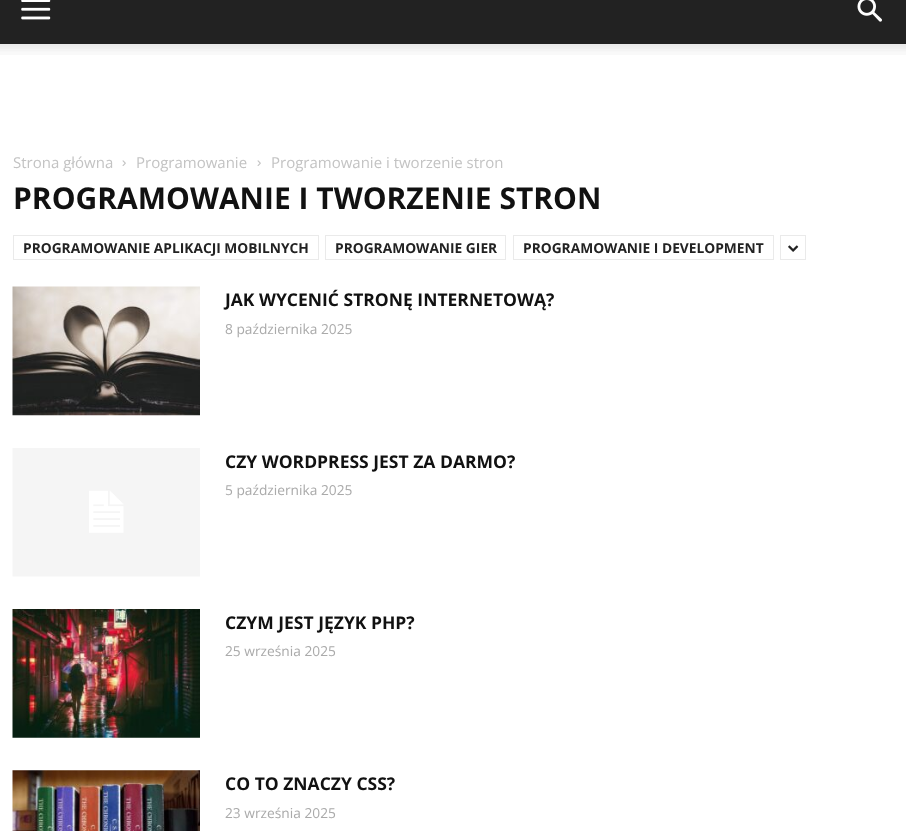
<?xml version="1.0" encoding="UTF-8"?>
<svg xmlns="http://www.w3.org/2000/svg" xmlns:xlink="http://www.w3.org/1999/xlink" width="906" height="831">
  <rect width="100%" height="100%" fill="#ffffff" />
  <rect width="906" height="44" fill="#222222" />
  <image x="21" y="0" width="30" height="20" xlink:href="image1.png" />
  <image x="857" y="0" width="25" height="22" xlink:href="image2.png" />
  <image x="0" y="44" width="906" height="11" xlink:href="image3.png" />
  <image x="122" y="160" width="4" height="6" xlink:href="image4.png" />
  <image x="257" y="160" width="4" height="6" xlink:href="image4.png" />
  <rect x="13.5" y="235.5" width="305" height="24" fill="none" stroke="#eaeaea" />
  <rect x="325.5" y="235.5" width="180" height="24" fill="none" stroke="#eaeaea" />
  <rect x="513.5" y="235.5" width="260" height="24" fill="none" stroke="#eaeaea" />
  <rect x="780.5" y="235.5" width="25" height="24" fill="none" stroke="#eaeaea" />
  <image x="788" y="245" width="11" height="7" xlink:href="image5.png" />
  <image x="12" y="286" width="188" height="130" xlink:href="image6.png" />
  <image x="12" y="448" width="188" height="129" xlink:href="image7.png" />
  <image x="12" y="609" width="188" height="129" xlink:href="image8.png" />
  <image x="12" y="770" width="188" height="61" xlink:href="image9.png" />
  <text x="13" y="168" style="font-family: Open Sans; font-size: 15px; fill: #c3c3c3">Strona główna</text>
  <text x="136" y="168" style="font-family: Open Sans; font-size: 15px; fill: #c3c3c3">Programowanie</text>
  <text x="271" y="168" style="font-family: Open Sans; font-size: 15px; fill: #c3c3c3">Programowanie i tworzenie stron</text>
  <text x="13" y="209" style="font-family: Open Sans; font-size: 30px; font-weight: bold; fill: #111111">PROGRAMOWANIE I TWORZENIE STRON</text>
  <text x="23" y="253" style="font-family: Open Sans; font-size: 13.75px; font-weight: bold; fill: #222222">PROGRAMOWANIE APLIKACJI MOBILNYCH</text>
  <text x="335" y="253" style="font-family: Open Sans; font-size: 13.75px; font-weight: bold; fill: #222222">PROGRAMOWANIE GIER</text>
  <text x="523" y="253" style="font-family: Open Sans; font-size: 13.75px; font-weight: bold; fill: #222222">PROGRAMOWANIE I DEVELOPMENT</text>
  <text x="225" y="306" style="font-family: Open Sans; font-size: 17.5px; font-weight: bold; fill: #111111">JAK WYCENIĆ STRONĘ INTERNETOWĄ?</text>
  <text x="225" y="334" style="font-family: Open Sans; font-size: 13.75px; fill: #aaaaaa">8 października 2025</text>
  <text x="225" y="468" style="font-family: Open Sans; font-size: 17.5px; font-weight: bold; fill: #111111">CZY WORDPRESS JEST ZA DARMO?</text>
  <text x="225" y="495" style="font-family: Open Sans; font-size: 13.75px; fill: #aaaaaa">5 października 2025</text>
  <text x="225" y="629" style="font-family: Open Sans; font-size: 17.5px; font-weight: bold; fill: #111111">CZYM JEST JĘZYK PHP?</text>
  <text x="225" y="656" style="font-family: Open Sans; font-size: 13.75px; fill: #aaaaaa">25 września 2025</text>
  <text x="225" y="790" style="font-family: Open Sans; font-size: 17.5px; font-weight: bold; fill: #111111">CO TO ZNACZY CSS?</text>
  <text x="225" y="818" style="font-family: Open Sans; font-size: 13.75px; fill: #aaaaaa">23 września 2025</text>
</svg>
